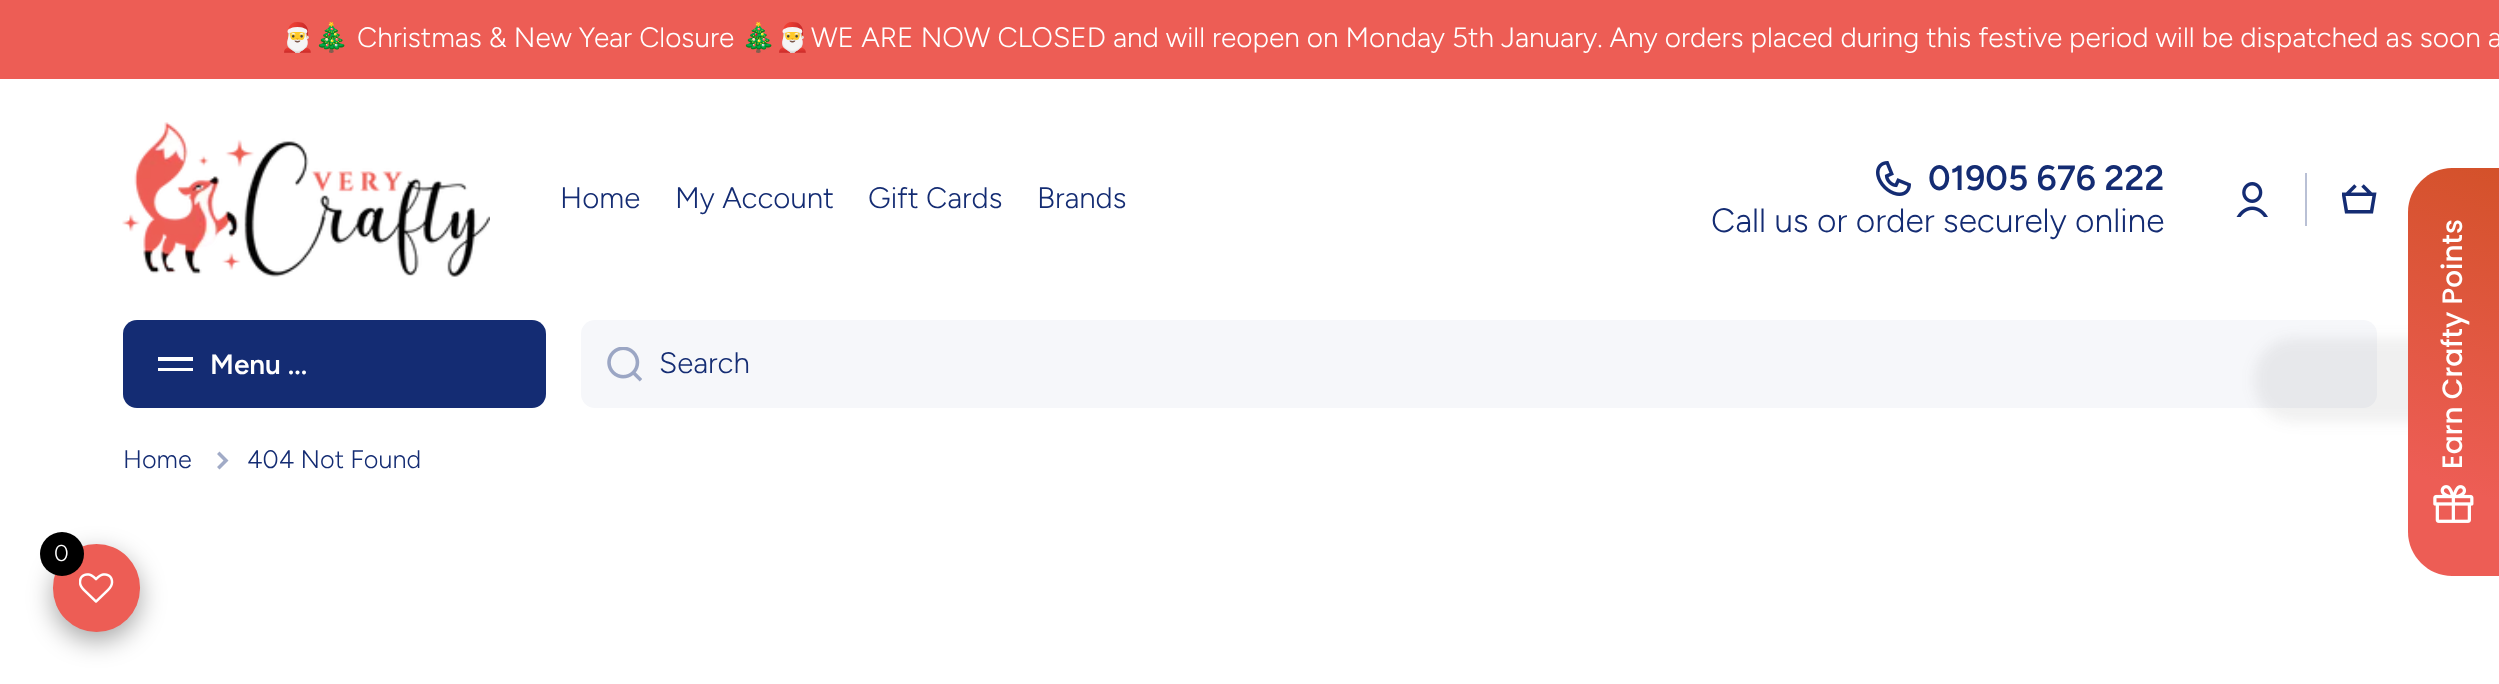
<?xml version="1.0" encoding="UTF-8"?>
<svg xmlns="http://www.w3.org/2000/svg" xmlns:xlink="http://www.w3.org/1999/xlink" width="2499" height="684">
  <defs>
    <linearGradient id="g1" gradientUnits="userSpaceOnUse" x1="2384" y1="567" x2="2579" y2="20"><stop offset="0.17" stop-color="#ed5d55" /><stop offset="1" stop-color="#c64b13" /></linearGradient>
  </defs>
  <rect width="100%" height="100%" fill="#ffffff" />
  <rect width="2499" height="79" fill="#ed5d55" />
  <image x="122" y="122" width="368" height="155" xlink:href="image1.png" />
  <image x="1876" y="161" width="35" height="35" xlink:href="image2.png" />
  <image x="2236" y="182" width="32" height="35" xlink:href="image3.png" />
  <rect x="2305" y="173" width="2" height="53" fill="#b9c0d5" />
  <image x="2342" y="184" width="35" height="30" xlink:href="image4.png" />
  <rect x="123" y="320" width="423" height="88" rx="14" fill="#142c73" />
  <rect x="158" y="357" width="35" height="4" fill="#ffffff" />
  <rect x="158" y="368" width="35" height="3" fill="#ffffff" />
  <rect x="581" y="320" width="1796" height="88" rx="14" fill="#f6f7fa" />
  <image x="607" y="347" width="35" height="35" xlink:href="image5.png" />
  <rect x="2254" y="338" width="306" height="84" rx="40" fill="#444444" fill-opacity="0.08" filter="blur(7px)" />
  <path d="M 2408 532 v -320 c 0 -24 20 -44 44 -44 h 47 v 408 h -47 c -24 0 -44 -20 -44 -44 z" fill="url(#g1)" />
  <image x="2433" y="485" width="41" height="38" xlink:href="image6.png" />
  <path d="M 223.5 460.5 l -6.5 -6.5 l 2.5 -2.5 l 9 9 l -9 9 l -2.5 -2.5 z" fill="#a1abc7" fill-rule="evenodd" />
  <rect x="53" y="553" width="87" height="88" rx="43.5" fill="#000000" fill-opacity="0.35" filter="blur(13px)" />
  <rect x="53" y="544" width="87" height="88" rx="43.5" fill="#ed5d55" />
  <image x="79" y="573" width="35" height="30" xlink:href="image7.png" />
  <circle cx="62" cy="554" r="22" fill="#000000" />
  <text x="280" y="47" style="font-family: Noto Color Emoji; font-size: 28px; fill: #ffffff">🎅🎄</text>
  <text x="357" y="47" style="font-family: Figtree; font-size: 28px; font-weight: 300; fill: #ffffff">Christmas &amp; New Year Closure</text>
  <text x="741" y="47" style="font-family: Noto Color Emoji; font-size: 28px; fill: #ffffff">🎄🎅</text>
  <text x="811" y="47" style="font-family: Figtree; font-size: 28px; font-weight: 300; fill: #ffffff">WE ARE NOW CLOSED and will reopen on Monday 5th January. Any orders placed during this festive period will be dispatched as soon a</text>
  <text x="560" y="208" style="font-family: Figtree; font-size: 29.5px; font-weight: 300; fill: #142c73">Home</text>
  <text x="675" y="208" style="font-family: Figtree; font-size: 29.5px; font-weight: 300; fill: #142c73">My Account</text>
  <text x="868" y="208" style="font-family: Figtree; font-size: 29.5px; font-weight: 300; fill: #142c73">Gift Cards</text>
  <text x="1037" y="208" style="font-family: Figtree; font-size: 29.5px; font-weight: 300; fill: #142c73">Brands</text>
  <text x="1928" y="190" style="font-family: Figtree; font-size: 35px; font-weight: 600; fill: #142c73">01905 676 222</text>
  <text x="1711" y="232" style="font-family: Figtree; font-size: 33.6px; font-weight: 300; fill: #142c73">Call us or order securely online</text>
  <text x="210" y="374" style="font-family: Figtree; font-size: 28px; font-weight: 600; fill: #ffffff">Menu ...</text>
  <text x="659" y="373" style="font-family: Figtree; font-size: 29.5px; font-weight: 300; fill: #142c73">Search</text>
  <text x="2462" y="469" transform="rotate(-90 2462 469)" style="font-family: Poppins; font-size: 28px; font-weight: 500; fill: #ffffff">Earn Crafty Points</text>
  <text x="123" y="468" style="font-family: Figtree; font-size: 25.25px; font-weight: 300; fill: #142c73">Home</text>
  <text x="247" y="468" style="font-family: Figtree; font-size: 25.25px; font-weight: 300; fill: #142c73">404 Not Found</text>
  <text x="54" y="561" style="font-family: Figtree; font-size: 23px; font-weight: 300; fill: #ffffff">0</text>
</svg>
